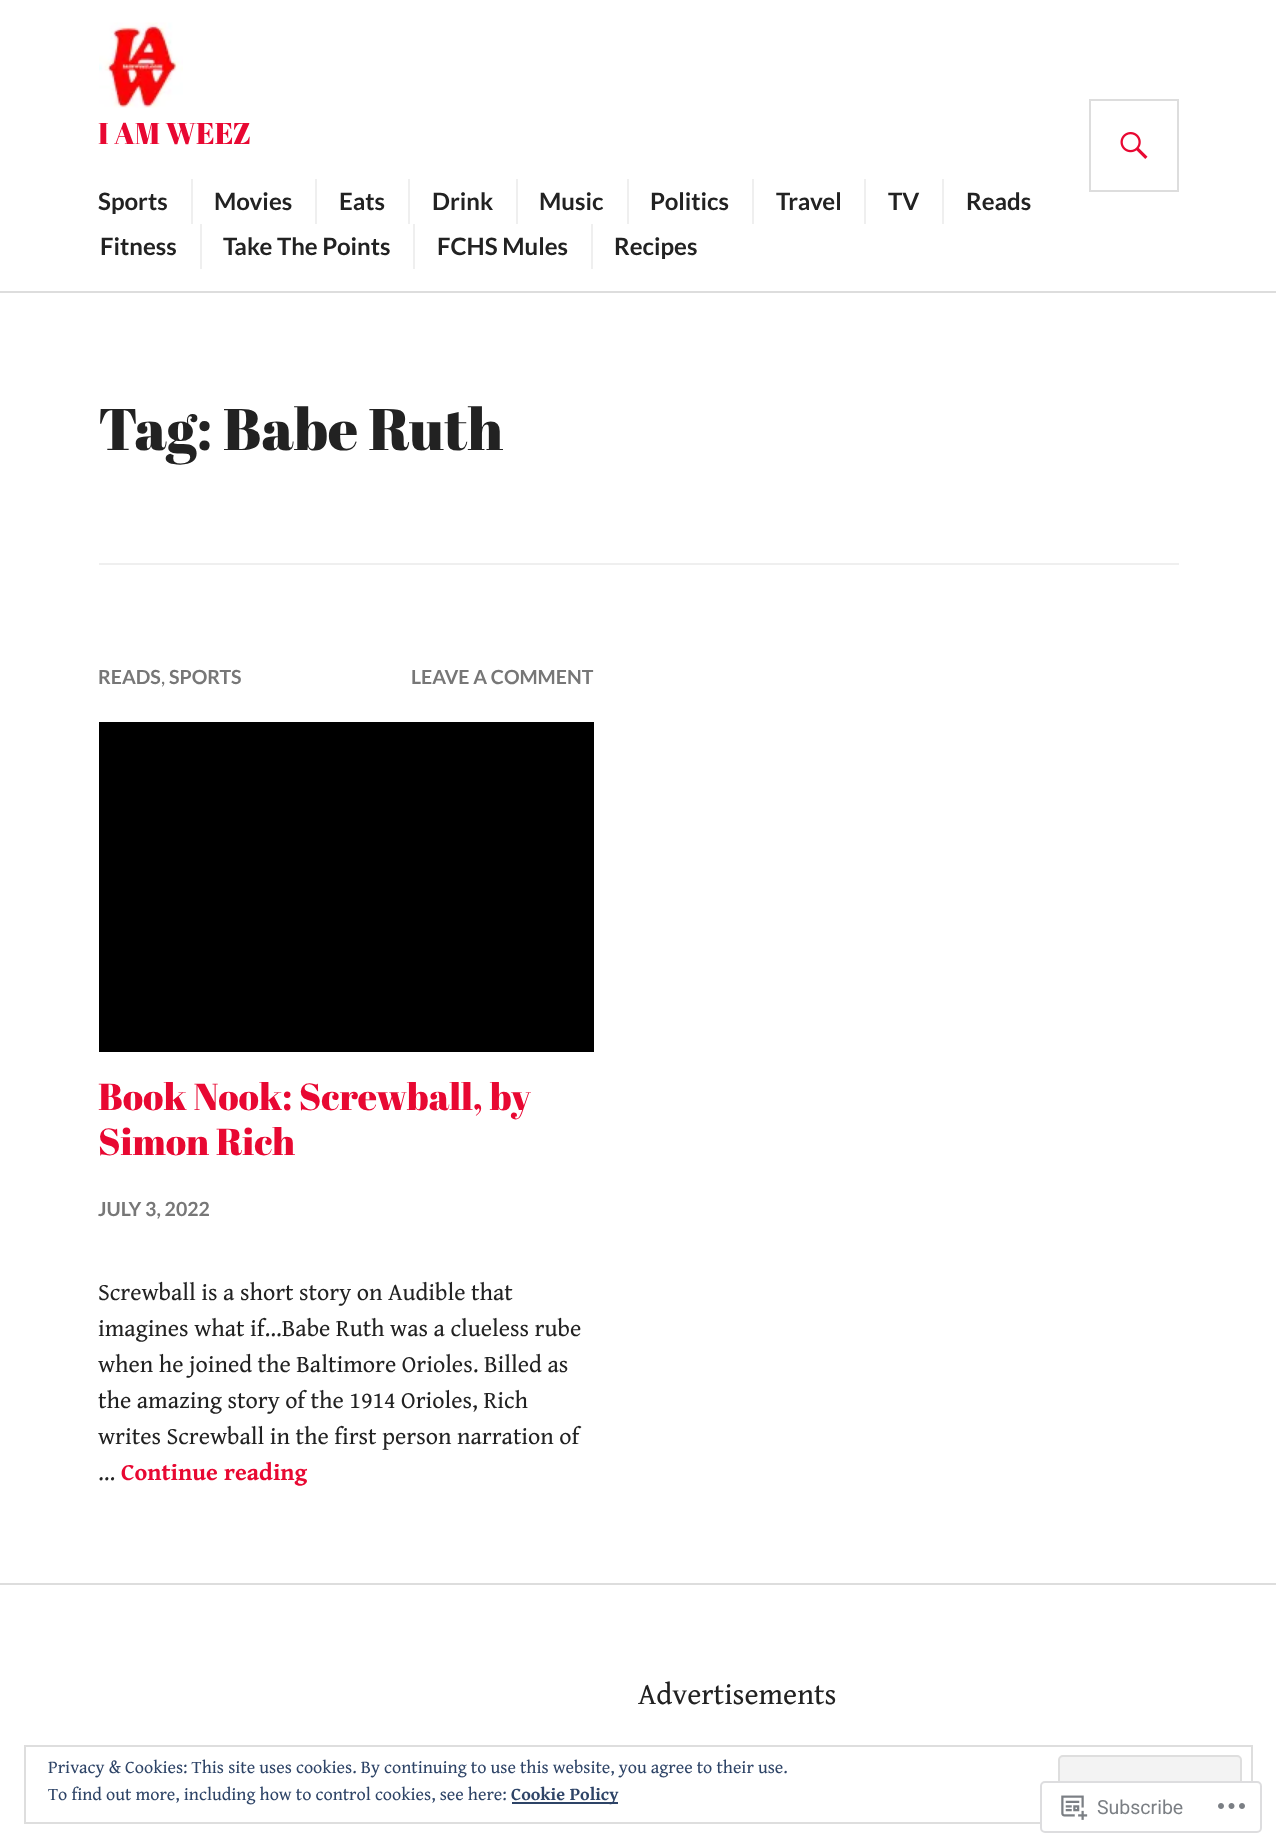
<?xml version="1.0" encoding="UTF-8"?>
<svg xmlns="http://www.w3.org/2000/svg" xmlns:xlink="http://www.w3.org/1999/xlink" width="1276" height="1847">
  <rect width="100%" height="100%" fill="#ffffff" />
  <rect y="291" width="1276" height="2" fill="#dddddd" />
  <image x="99" y="22" width="84" height="86" xlink:href="image1.png" />
  <rect x="1090" y="100" width="88" height="91" fill="none" stroke="#dddddd" stroke-width="2" />
  <image x="1120" y="132" width="28" height="27" xlink:href="image2.png" />
  <rect x="191" y="179" width="2" height="45" fill="#efefef" />
  <rect x="315" y="179" width="2" height="45" fill="#efefef" />
  <rect x="408" y="179" width="2" height="45" fill="#efefef" />
  <rect x="516" y="179" width="2" height="45" fill="#efefef" />
  <rect x="627" y="179" width="2" height="45" fill="#efefef" />
  <rect x="752" y="179" width="2" height="45" fill="#efefef" />
  <rect x="864" y="179" width="2" height="45" fill="#efefef" />
  <rect x="942" y="179" width="2" height="45" fill="#efefef" />
  <rect x="200" y="224" width="2" height="45" fill="#efefef" />
  <rect x="413" y="224" width="2" height="45" fill="#efefef" />
  <rect x="591" y="224" width="2" height="45" fill="#efefef" />
  <rect x="99" y="563" width="1080" height="2" fill="#efefef" />
  <rect x="99" y="722" width="495" height="330" fill="#000000" />
  <rect y="1583" width="1276" height="2" fill="#dddddd" />
  <rect x="25" y="1746" width="1227" height="77" fill="none" stroke="#dedede" stroke-width="2" />
  <rect x="1059" y="1756" width="182" height="57" rx="4" fill="#f3f3f3" stroke="#dedede" stroke-width="2" />
  <rect x="512" y="1802" width="106" height="2" fill="#2e4467" />
  <rect x="1040" y="1781" width="222" height="52" rx="5" fill="#ffffff" fill-opacity="0.98" />
  <rect x="1041" y="1782" width="220" height="50" rx="4" fill="none" stroke="#dcdcde" stroke-opacity="0.98" stroke-width="2" />
  <image x="1061" y="1795" width="27" height="25" xlink:href="image3.png" />
  <image x="1218" y="1803" width="27" height="6" xlink:href="image4.png" />
  <text x="98" y="144" style="font-family: Abril Fatface; font-size: 30px; fill: #e80832">I AM WEEZ</text>
  <text x="98" y="210" style="font-family: Lato; font-size: 24px; font-weight: bold; fill: #222222">Sports</text>
  <text x="214" y="210" style="font-family: Lato; font-size: 24px; font-weight: bold; fill: #222222">Movies</text>
  <text x="339" y="210" style="font-family: Lato; font-size: 24px; font-weight: bold; fill: #222222">Eats</text>
  <text x="432" y="210" style="font-family: Lato; font-size: 24px; font-weight: bold; fill: #222222">Drink</text>
  <text x="539" y="210" style="font-family: Lato; font-size: 24px; font-weight: bold; fill: #222222">Music</text>
  <text x="650" y="210" style="font-family: Lato; font-size: 24px; font-weight: bold; fill: #222222">Politics</text>
  <text x="776" y="210" style="font-family: Lato; font-size: 24px; font-weight: bold; fill: #222222">Travel</text>
  <text x="888" y="210" style="font-family: Lato; font-size: 24px; font-weight: bold; fill: #222222">TV</text>
  <text x="966" y="210" style="font-family: Lato; font-size: 24px; font-weight: bold; fill: #222222">Reads</text>
  <text x="100" y="255" style="font-family: Lato; font-size: 24px; font-weight: bold; fill: #222222">Fitness</text>
  <text x="223" y="255" style="font-family: Lato; font-size: 24px; font-weight: bold; fill: #222222">Take The Points</text>
  <text x="437" y="255" style="font-family: Lato; font-size: 24px; font-weight: bold; fill: #222222">FCHS Mules</text>
  <text x="614" y="255" style="font-family: Lato; font-size: 24px; font-weight: bold; fill: #222222">Recipes</text>
  <text x="98" y="450" style="font-family: Abril Fatface; font-size: 58.5px; fill: #222222">Tag: Babe Ruth</text>
  <text x="98" y="684" style="font-family: Lato; font-size: 19.5px; font-weight: bold; fill: #777777">READS</text>
  <text x="161" y="684" style="font-family: Lato; font-size: 19.5px; fill: #777777">,</text>
  <text x="169" y="684" style="font-family: Lato; font-size: 19.5px; font-weight: bold; fill: #777777">SPORTS</text>
  <text x="411" y="684" style="font-family: Lato; font-size: 19.5px; font-weight: bold; fill: #777777">LEAVE A COMMENT</text>
  <text x="98" y="1110" style="font-family: Abril Fatface; font-size: 37.5px; fill: #e80832">Book Nook: Screwball, by</text>
  <text x="98" y="1155" style="font-family: Abril Fatface; font-size: 37.5px; fill: #e80832">Simon Rich</text>
  <text x="98" y="1216" style="font-family: Lato; font-size: 19.5px; font-weight: bold; fill: #777777">JULY 3, 2022</text>
  <text x="98" y="1300" style="font-family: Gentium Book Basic; font-size: 24px; fill: #222222">Screwball is a short story on Audible that</text>
  <text x="98" y="1336" style="font-family: Gentium Book Basic; font-size: 24px; fill: #222222">imagines what if…Babe Ruth was a clueless rube</text>
  <text x="98" y="1372" style="font-family: Gentium Book Basic; font-size: 24px; fill: #222222">when he joined the Baltimore Orioles. Billed as</text>
  <text x="98" y="1408" style="font-family: Gentium Book Basic; font-size: 24px; fill: #222222">the amazing story of the 1914 Orioles, Rich</text>
  <text x="98" y="1444" style="font-family: Gentium Book Basic; font-size: 24px; fill: #222222">writes Screwball in the first person narration of</text>
  <text x="98" y="1480" style="font-family: Gentium Book Basic; font-size: 24px; fill: #222222">…</text>
  <text x="121" y="1480" style="font-family: Gentium Book Basic; font-size: 24px; font-weight: bold; fill: #e80832">Continue reading</text>
  <text x="638" y="1704" style="font-family: Gentium Book Basic; font-size: 30px; fill: #222222">Advertisements</text>
  <text x="48" y="1773" style="font-family: Gentium Book Basic; font-size: 18px; fill: #2e4467">Privacy &amp; Cookies: This site uses cookies. By continuing to use this website, you agree to their use.</text>
  <text x="48" y="1800" style="font-family: Gentium Book Basic; font-size: 18px; fill: #2e4467">To find out more, including how to control cookies, see here:</text>
  <text x="511" y="1800" style="font-family: Gentium Book Basic; font-size: 18px; font-weight: bold; fill: #2e4467">Cookie Policy</text>
  <text x="1097" y="1814" style="font-family: Roboto; font-size: 19.5px; fill: #7b7f84">Subscribe</text>
</svg>
